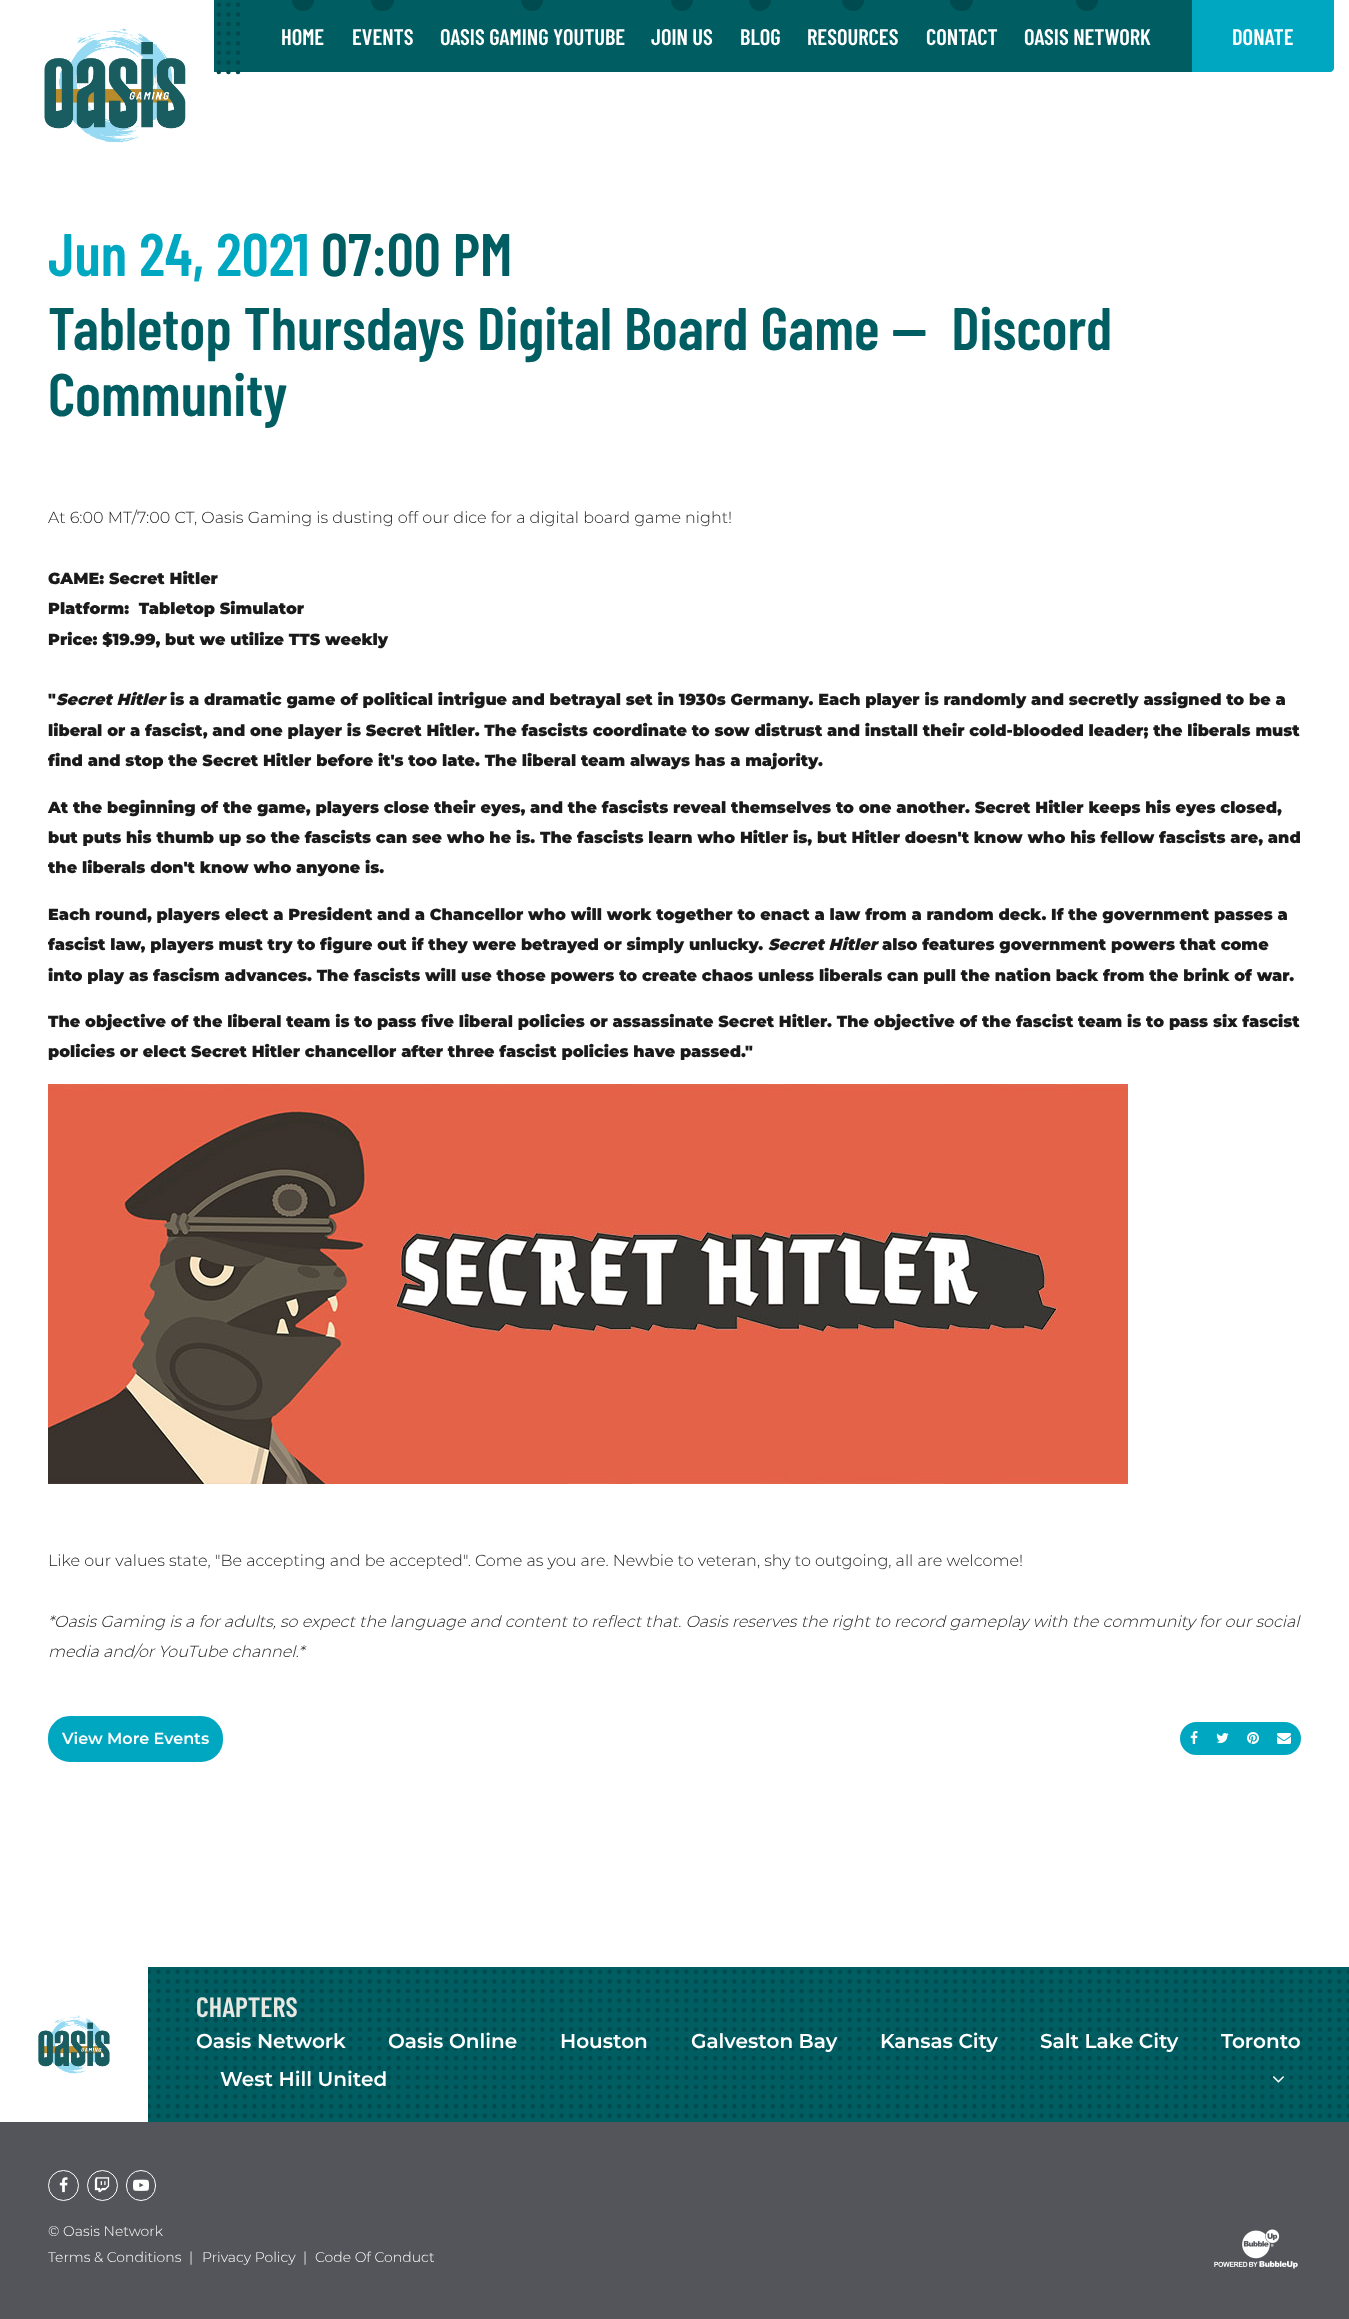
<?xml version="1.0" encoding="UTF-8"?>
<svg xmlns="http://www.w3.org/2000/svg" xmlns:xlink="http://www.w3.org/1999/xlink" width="1349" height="2319">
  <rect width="100%" height="100%" fill="#ffffff" />
  <image x="44" y="28" width="142" height="115" xlink:href="image1.png" />
  <path d="M 214 0 h 1119 v 68 c 0 2 -2 4 -4 4 h -1115 z" fill="#005e63" />
  <path d="M 218.8 4.8 v 67.4" fill="none" stroke="#004b4f" stroke-width="4.5" stroke-linecap="round" stroke-dasharray="0 9.6" />
  <path d="M 228.4 4.8 v 67.4" fill="none" stroke="#004b4f" stroke-width="4.5" stroke-linecap="round" stroke-dasharray="0 9.6" />
  <path d="M 238 4.8 v 67.4" fill="none" stroke="#004b4f" stroke-width="4.5" stroke-linecap="round" stroke-dasharray="0 9.6" />
  <circle cx="303" cy="0" r="11" fill="#004b4f" />
  <rect x="371" y="-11" width="23" height="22" rx="11" fill="#004b4f" />
  <circle cx="532" cy="0" r="11" fill="#004b4f" />
  <circle cx="682" cy="0" r="11" fill="#004b4f" />
  <circle cx="760" cy="0" r="11" fill="#004b4f" />
  <circle cx="853" cy="0" r="11" fill="#004b4f" />
  <rect x="950" y="-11" width="23" height="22" rx="11" fill="#004b4f" />
  <circle cx="1087" cy="0" r="11" fill="#004b4f" />
  <path d="M 1192 0 h 142 v 68 c 0 2 -2 4 -4 4 h -138 z" fill="#00a7c1" />
  <image x="48" y="1084" width="1080" height="400" xlink:href="image2.png" />
  <rect x="49" y="1717" width="173" height="44" rx="21" fill="#00a7c1" stroke="#00a7c1" stroke-width="2" />
  <path d="M 1196.5 1723 h 10.5 v 31 h -10.5 c -8.5 0 -15.5 -7 -15.5 -15.5 c 0 -8.5 7 -15.5 15.5 -15.5 z" fill="#00a7c1" stroke="#00a7c1" stroke-width="2" />
  <image x="1190" y="1731" width="8" height="13" xlink:href="image3.png" />
  <rect x="1208" y="1722" width="59" height="33" fill="#00a7c1" />
  <image x="1216" y="1733" width="13" height="10" xlink:href="image4.png" />
  <path d="M 1268 1723 h 16.5 c 8.5 0 15.5 7 15.5 15.5 c 0 8.5 -7 15.5 -15.5 15.5 h -16.5 z" fill="#00a7c1" stroke="#00a7c1" stroke-width="2" />
  <image x="1277" y="1733" width="14" height="11" xlink:href="image5.png" />
  <image x="1247" y="1732" width="12" height="12" xlink:href="image6.png" />
  <rect y="2122" width="1349" height="197" fill="#53555a" />
  <rect x="148" y="1967" width="1201" height="155" fill="#005e63" />
  <path d="M 4.8 1971.8 h 1344.2" fill="none" stroke="#004b4f" stroke-width="4.5" stroke-linecap="round" stroke-dasharray="0 9.6" />
  <path d="M 4.8 1981.4 h 1344.2" fill="none" stroke="#004b4f" stroke-width="4.5" stroke-linecap="round" stroke-dasharray="0 9.6" />
  <path d="M 4.8 1991 h 1344.2" fill="none" stroke="#004b4f" stroke-width="4.5" stroke-linecap="round" stroke-dasharray="0 9.6" />
  <path d="M 4.8 2000.6 h 1344.2" fill="none" stroke="#004b4f" stroke-width="4.5" stroke-linecap="round" stroke-dasharray="0 9.6" />
  <path d="M 4.8 2010.2 h 1344.2" fill="none" stroke="#004b4f" stroke-width="4.5" stroke-linecap="round" stroke-dasharray="0 9.6" />
  <path d="M 4.8 2019.8 h 1344.2" fill="none" stroke="#004b4f" stroke-width="4.5" stroke-linecap="round" stroke-dasharray="0 9.6" />
  <path d="M 4.8 2029.4 h 1344.2" fill="none" stroke="#004b4f" stroke-width="4.5" stroke-linecap="round" stroke-dasharray="0 9.6" />
  <path d="M 4.8 2039 h 1344.2" fill="none" stroke="#004b4f" stroke-width="4.5" stroke-linecap="round" stroke-dasharray="0 9.6" />
  <path d="M 4.8 2048.6 h 1344.2" fill="none" stroke="#004b4f" stroke-width="4.5" stroke-linecap="round" stroke-dasharray="0 9.6" />
  <path d="M 4.8 2058.2 h 1344.2" fill="none" stroke="#004b4f" stroke-width="4.5" stroke-linecap="round" stroke-dasharray="0 9.6" />
  <path d="M 4.8 2067.8 h 1344.2" fill="none" stroke="#004b4f" stroke-width="4.5" stroke-linecap="round" stroke-dasharray="0 9.6" />
  <path d="M 4.8 2077.4 h 1344.2" fill="none" stroke="#004b4f" stroke-width="4.5" stroke-linecap="round" stroke-dasharray="0 9.6" />
  <path d="M 4.8 2087 h 1344.2" fill="none" stroke="#004b4f" stroke-width="4.5" stroke-linecap="round" stroke-dasharray="0 9.6" />
  <path d="M 4.8 2096.6 h 1344.2" fill="none" stroke="#004b4f" stroke-width="4.5" stroke-linecap="round" stroke-dasharray="0 9.6" />
  <path d="M 4.8 2106.2 h 1344.2" fill="none" stroke="#004b4f" stroke-width="4.5" stroke-linecap="round" stroke-dasharray="0 9.6" />
  <path d="M 4.8 2115.8 h 1344.2" fill="none" stroke="#004b4f" stroke-width="4.5" stroke-linecap="round" stroke-dasharray="0 9.6" />
  <rect x="2" y="1969" width="146" height="150" fill="#ffffff" />
  <image x="38" y="2015" width="72" height="59" xlink:href="image7.png" />
  <image x="1272" y="2076" width="12" height="7" xlink:href="image8.png" />
  <circle cx="63.5" cy="2185.5" r="15" fill="none" stroke="#ffffff" />
  <image x="59" y="2177" width="9" height="16" xlink:href="image9.png" />
  <circle cx="102.5" cy="2185.5" r="15" fill="none" stroke="#ffffff" />
  <image x="94" y="2177" width="16" height="16" xlink:href="image10.png" />
  <rect x="126.5" y="2170.5" width="29" height="30" rx="14.5" fill="none" stroke="#ffffff" />
  <image x="133" y="2179" width="16" height="12" xlink:href="image11.png" />
  <image x="1214" y="2229" width="84" height="40" xlink:href="image12.png" />
  <text x="281" y="45" style="font-family: Barlow Condensed; font-size: 22.5px; font-weight: 600; fill: #ffffff">HOME</text>
  <text x="352" y="45" style="font-family: Barlow Condensed; font-size: 22.5px; font-weight: 600; fill: #ffffff">EVENTS</text>
  <text x="440" y="45" style="font-family: Barlow Condensed; font-size: 22.5px; font-weight: 600; fill: #ffffff">OASIS GAMING YOUTUBE</text>
  <text x="651" y="45" style="font-family: Barlow Condensed; font-size: 22.5px; font-weight: 600; fill: #ffffff">JOIN US</text>
  <text x="740" y="45" style="font-family: Barlow Condensed; font-size: 22.5px; font-weight: 600; fill: #ffffff">BLOG</text>
  <text x="807" y="45" style="font-family: Barlow Condensed; font-size: 22.5px; font-weight: 600; fill: #ffffff">RESOURCES</text>
  <text x="926" y="45" style="font-family: Barlow Condensed; font-size: 22.5px; font-weight: 600; fill: #ffffff">CONTACT</text>
  <text x="1024" y="45" style="font-family: Barlow Condensed; font-size: 22.5px; font-weight: 600; fill: #ffffff">OASIS NETWORK</text>
  <text x="1232" y="45" style="font-family: Barlow Condensed; font-size: 22.5px; font-weight: 600; fill: #ffffff">DONATE</text>
  <text x="48" y="276" style="font-family: Barlow Condensed; font-size: 60px; font-weight: 600; fill: #00a7c1">Jun 24, 2021</text>
  <text x="321" y="276" style="font-family: Barlow Condensed; font-size: 60px; font-weight: 600; fill: #005e63">07:00 PM</text>
  <text x="48" y="350" style="font-family: Barlow Condensed; font-size: 60px; font-weight: 600; fill: #005e63" xml:space="preserve">Tabletop Thursdays Digital Board Game —  Discord</text>
  <text x="48" y="416" style="font-family: Barlow Condensed; font-size: 60px; font-weight: 600; fill: #005e63">Community</text>
  <text x="48" y="523" style="font-family: Montserrat; font-size: 16px; font-weight: 300; fill: #1a1a1a">At 6:00 MT/7:00 CT, Oasis Gaming is dusting off our dice for a digital board game night!</text>
  <text x="48" y="584" style="font-family: Montserrat; font-size: 16px; font-weight: 900; fill: #1a1a1a">GAME: Secret Hitler</text>
  <text x="48" y="614" style="font-family: Montserrat; font-size: 16px; font-weight: 900; fill: #1a1a1a" xml:space="preserve">Platform:  Tabletop Simulator</text>
  <text x="48" y="645" style="font-family: Montserrat; font-size: 16px; font-weight: 900; fill: #1a1a1a">Price: $19.99, but we utilize TTS weekly</text>
  <text x="48" y="705" style="font-family: Montserrat; font-size: 16px; font-weight: 900; fill: #1a1a1a">"</text>
  <text x="56" y="705" style="font-family: Montserrat; font-size: 16px; font-weight: 900; font-style: italic; fill: #1a1a1a">Secret Hitler</text>
  <text x="170" y="705" style="font-family: Montserrat; font-size: 16px; font-weight: 900; fill: #1a1a1a">is a dramatic game of political intrigue and betrayal set in 1930s Germany. Each player is randomly and secretly assigned to be a</text>
  <text x="48" y="736" style="font-family: Montserrat; font-size: 16px; font-weight: 900; fill: #1a1a1a">liberal or a fascist, and one player is Secret Hitler. The fascists coordinate to sow distrust and install their cold-blooded leader; the liberals must</text>
  <text x="48" y="766" style="font-family: Montserrat; font-size: 16px; font-weight: 900; fill: #1a1a1a">find and stop the Secret Hitler before it's too late. The liberal team always has a majority.</text>
  <text x="48" y="813" style="font-family: Montserrat; font-size: 16px; font-weight: 900; fill: #1a1a1a">At the beginning of the game, players close their eyes, and the fascists reveal themselves to one another. Secret Hitler keeps his eyes closed,</text>
  <text x="48" y="843" style="font-family: Montserrat; font-size: 16px; font-weight: 900; fill: #1a1a1a">but puts his thumb up so the fascists can see who he is. The fascists learn who Hitler is, but Hitler doesn't know who his fellow fascists are, and</text>
  <text x="48" y="873" style="font-family: Montserrat; font-size: 16px; font-weight: 900; fill: #1a1a1a">the liberals don't know who anyone is.</text>
  <text x="48" y="920" style="font-family: Montserrat; font-size: 16px; font-weight: 900; fill: #1a1a1a">Each round, players elect a President and a Chancellor who will work together to enact a law from a random deck. If the government passes a</text>
  <text x="48" y="950" style="font-family: Montserrat; font-size: 16px; font-weight: 900; fill: #1a1a1a">fascist law, players must try to figure out if they were betrayed or simply unlucky.</text>
  <text x="768" y="950" style="font-family: Montserrat; font-size: 16px; font-weight: 900; font-style: italic; fill: #1a1a1a">Secret Hitler</text>
  <text x="882" y="950" style="font-family: Montserrat; font-size: 16px; font-weight: 900; fill: #1a1a1a">also features government powers that come</text>
  <text x="48" y="981" style="font-family: Montserrat; font-size: 16px; font-weight: 900; fill: #1a1a1a">into play as fascism advances. The fascists will use those powers to create chaos unless liberals can pull the nation back from the brink of war.</text>
  <text x="48" y="1027" style="font-family: Montserrat; font-size: 16px; font-weight: 900; fill: #1a1a1a">The objective of the liberal team is to pass five liberal policies or assassinate Secret Hitler. The objective of the fascist team is to pass six fascist</text>
  <text x="48" y="1057" style="font-family: Montserrat; font-size: 16px; font-weight: 900; fill: #1a1a1a">policies or elect Secret Hitler chancellor after three fascist policies have passed."</text>
  <text x="48" y="1566" style="font-family: Montserrat; font-size: 16px; font-weight: 300; fill: #1a1a1a">Like our values state, "Be accepting and be accepted". Come as you are. Newbie to veteran, shy to outgoing, all are welcome!</text>
  <text x="48" y="1627" style="font-family: Montserrat; font-size: 16px; font-weight: 300; font-style: italic; fill: #1a1a1a">*Oasis Gaming is a for adults, so expect the language and content to reflect that. Oasis reserves the right to record gameplay with the community for our social</text>
  <text x="48" y="1657" style="font-family: Montserrat; font-size: 16px; font-weight: 300; font-style: italic; fill: #1a1a1a">media and/or YouTube channel.*</text>
  <text x="62" y="1744" style="font-family: Montserrat; font-size: 16px; font-weight: 600; fill: #ffffff">View More Events</text>
  <text x="196" y="2017" style="font-family: Barlow Condensed; font-size: 28px; font-weight: 600; fill: #e8e7e2">CHAPTERS</text>
  <text x="196" y="2048" style="font-family: Montserrat; font-size: 20px; font-weight: 600; fill: #ffffff">Oasis Network</text>
  <text x="388" y="2048" style="font-family: Montserrat; font-size: 20px; font-weight: 600; fill: #ffffff">Oasis Online</text>
  <text x="560" y="2048" style="font-family: Montserrat; font-size: 20px; font-weight: 600; fill: #ffffff">Houston</text>
  <text x="691" y="2048" style="font-family: Montserrat; font-size: 20px; font-weight: 600; fill: #ffffff">Galveston Bay</text>
  <text x="880" y="2048" style="font-family: Montserrat; font-size: 20px; font-weight: 600; fill: #ffffff">Kansas City</text>
  <text x="1040" y="2048" style="font-family: Montserrat; font-size: 20px; font-weight: 600; fill: #ffffff">Salt Lake City</text>
  <text x="1221" y="2048" style="font-family: Montserrat; font-size: 20px; font-weight: 600; fill: #ffffff">Toronto</text>
  <text x="220" y="2086" style="font-family: Montserrat; font-size: 20px; font-weight: 600; fill: #ffffff">West Hill United</text>
  <text x="48" y="2236" style="font-family: Montserrat; font-size: 14px; font-weight: 300; fill: #ffffff">© Oasis Network</text>
  <text x="48" y="2262" style="font-family: Montserrat; font-size: 14px; font-weight: 300; fill: #ffffff">Terms &amp; Conditions</text>
  <text x="189" y="2262" style="font-family: Montserrat; font-size: 14px; font-weight: 300; fill: #ffffff">|</text>
  <text x="202" y="2262" style="font-family: Montserrat; font-size: 14px; font-weight: 300; fill: #ffffff">Privacy Policy</text>
  <text x="303" y="2262" style="font-family: Montserrat; font-size: 14px; font-weight: 300; fill: #ffffff">|</text>
  <text x="315" y="2262" style="font-family: Montserrat; font-size: 14px; font-weight: 300; fill: #ffffff">Code Of Conduct</text>
</svg>
